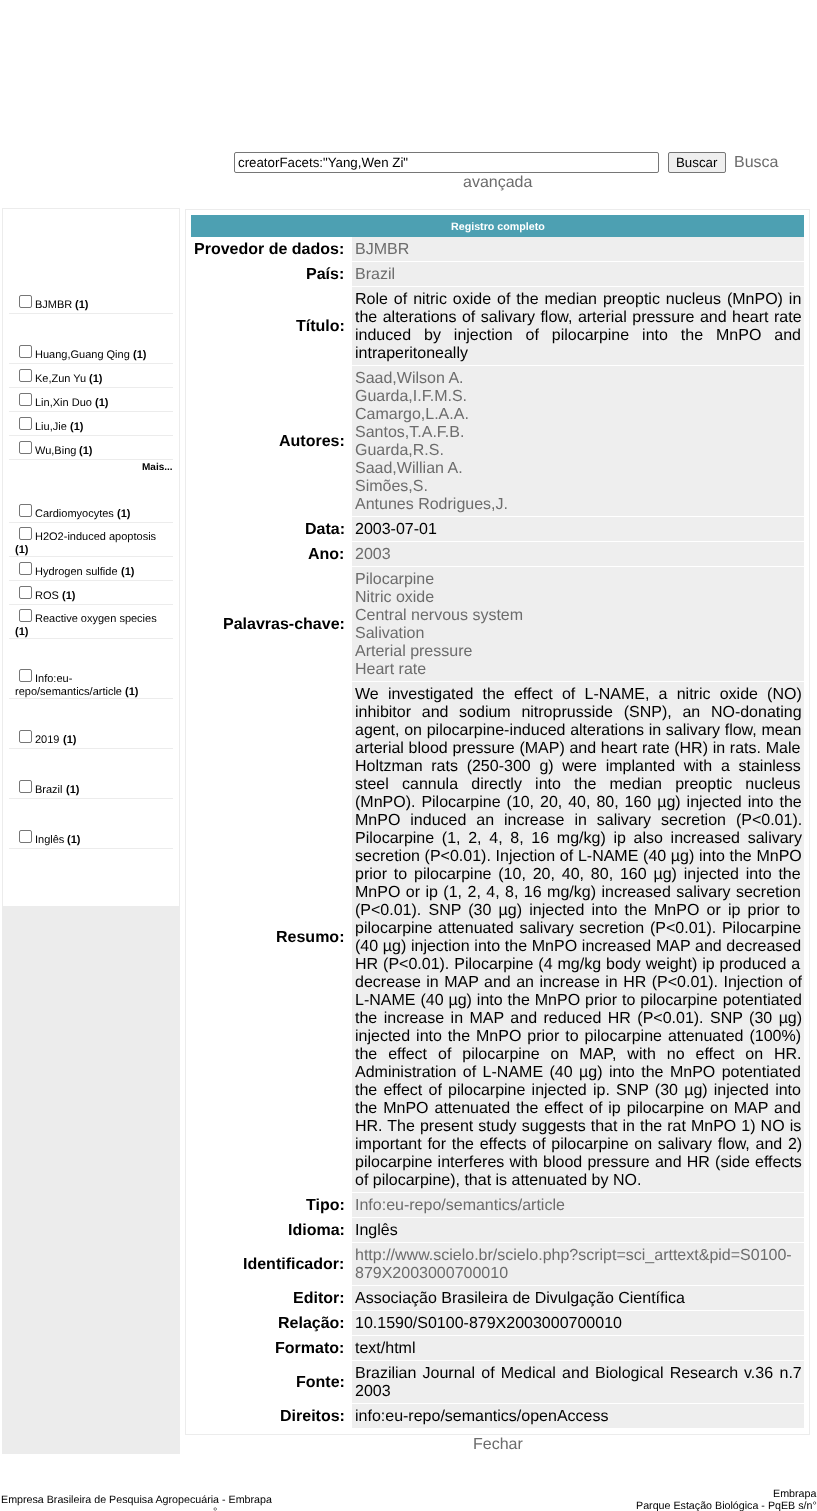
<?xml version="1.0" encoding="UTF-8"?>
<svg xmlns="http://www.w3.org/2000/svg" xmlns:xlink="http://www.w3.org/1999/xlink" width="817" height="1511">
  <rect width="100%" height="100%" fill="#ffffff" />
  <rect x="234.5" y="152.5" width="424" height="20" rx="1.5" fill="none" stroke="#767676" />
  <rect x="668.5" y="152.5" width="57" height="20" rx="1.5" fill="#efefef" stroke="#767676" />
  <rect x="2" y="208" width="178" height="1246" fill="#ececec" />
  <rect x="3" y="209" width="176" height="697" fill="#ffffff" />
  <rect x="9" y="313" width="164" height="1" fill="#ececec" />
  <rect x="19.5" y="295.5" width="12" height="12" rx="1.5" fill="none" stroke="#767676" />
  <rect x="9" y="363" width="164" height="1" fill="#ececec" />
  <rect x="19.5" y="345.5" width="12" height="12" rx="1.5" fill="none" stroke="#767676" />
  <rect x="9" y="387" width="164" height="1" fill="#ececec" />
  <rect x="19.5" y="369.5" width="12" height="12" rx="1.5" fill="none" stroke="#767676" />
  <rect x="9" y="411" width="164" height="1" fill="#ececec" />
  <rect x="19.5" y="393.5" width="12" height="12" rx="1.5" fill="none" stroke="#767676" />
  <rect x="9" y="435" width="164" height="1" fill="#ececec" />
  <rect x="19.5" y="417.5" width="12" height="12" rx="1.5" fill="none" stroke="#767676" />
  <rect x="9" y="459" width="164" height="1" fill="#ececec" />
  <rect x="19.5" y="441.5" width="12" height="12" rx="1.5" fill="none" stroke="#767676" />
  <rect x="9" y="522" width="164" height="1" fill="#ececec" />
  <rect x="19.5" y="504.5" width="12" height="12" rx="1.5" fill="none" stroke="#767676" />
  <rect x="9" y="556" width="164" height="1" fill="#ececec" />
  <rect x="19.5" y="527.5" width="12" height="12" rx="1.5" fill="none" stroke="#767676" />
  <rect x="9" y="580" width="164" height="1" fill="#ececec" />
  <rect x="19.5" y="562.5" width="12" height="12" rx="1.5" fill="none" stroke="#767676" />
  <rect x="9" y="604" width="164" height="1" fill="#ececec" />
  <rect x="19.5" y="586.5" width="12" height="12" rx="1.5" fill="none" stroke="#767676" />
  <rect x="9" y="638" width="164" height="1" fill="#ececec" />
  <rect x="19.5" y="609.5" width="12" height="12" rx="1.5" fill="none" stroke="#767676" />
  <rect x="9" y="698" width="164" height="1" fill="#ececec" />
  <rect x="19.5" y="669.5" width="12" height="12" rx="1.5" fill="none" stroke="#767676" />
  <rect x="9" y="748" width="164" height="1" fill="#ececec" />
  <rect x="19.5" y="730.5" width="12" height="12" rx="1.5" fill="none" stroke="#767676" />
  <rect x="9" y="798" width="164" height="1" fill="#ececec" />
  <rect x="19.5" y="780.5" width="12" height="12" rx="1.5" fill="none" stroke="#767676" />
  <rect x="9" y="848" width="164" height="1" fill="#ececec" />
  <rect x="19.5" y="830.5" width="12" height="12" rx="1.5" fill="none" stroke="#767676" />
  <rect x="185.5" y="209.5" width="624" height="1225" fill="none" stroke="#ececec" />
  <rect x="191" y="215" width="613" height="22" fill="#4da0b2" />
  <rect x="352" y="237" width="452" height="24" fill="#eeeeee" />
  <rect x="352" y="262" width="452" height="24" fill="#eeeeee" />
  <rect x="352" y="287" width="452" height="78" fill="#eeeeee" />
  <rect x="352" y="366" width="452" height="150" fill="#eeeeee" />
  <rect x="352" y="517" width="452" height="24" fill="#eeeeee" />
  <rect x="352" y="542" width="452" height="24" fill="#eeeeee" />
  <rect x="352" y="567" width="452" height="114" fill="#eeeeee" />
  <rect x="352" y="682" width="452" height="510" fill="#eeeeee" />
  <rect x="352" y="1193" width="452" height="24" fill="#eeeeee" />
  <rect x="352" y="1218" width="452" height="24" fill="#eeeeee" />
  <rect x="352" y="1243" width="452" height="42" fill="#eeeeee" />
  <rect x="352" y="1286" width="452" height="24" fill="#eeeeee" />
  <rect x="352" y="1311" width="452" height="24" fill="#eeeeee" />
  <rect x="352" y="1336" width="452" height="24" fill="#eeeeee" />
  <rect x="352" y="1361" width="452" height="42" fill="#eeeeee" />
  <rect x="352" y="1404" width="452" height="24" fill="#eeeeee" />
  <text x="238" y="167" style="font-family: Liberation Sans; font-size: 13.3px; fill: #000000">creatorFacets:"Yang,Wen Zi"</text>
  <text x="676" y="167" style="font-family: Liberation Sans; font-size: 13.3px; fill: #000000">Buscar</text>
  <text x="734" y="167" style="font-family: Liberation Sans; font-size: 16px; fill: #6c6c6c">Busca</text>
  <text x="463" y="187" style="font-family: Liberation Sans; font-size: 16px; fill: #6c6c6c">avançada</text>
  <text x="35" y="308" style="font-family: Liberation Sans; font-size: 11px; fill: #000000">BJMBR</text>
  <text x="75" y="308" style="font-family: Liberation Sans; font-size: 11px; font-weight: bold; fill: #000000">(1)</text>
  <text x="35" y="358" style="font-family: Liberation Sans; font-size: 11px; fill: #000000">Huang,Guang Qing</text>
  <text x="133" y="358" style="font-family: Liberation Sans; font-size: 11px; font-weight: bold; fill: #000000">(1)</text>
  <text x="35" y="382" style="font-family: Liberation Sans; font-size: 11px; fill: #000000">Ke,Zun Yu</text>
  <text x="89" y="382" style="font-family: Liberation Sans; font-size: 11px; font-weight: bold; fill: #000000">(1)</text>
  <text x="35" y="406" style="font-family: Liberation Sans; font-size: 11px; fill: #000000">Lin,Xin Duo</text>
  <text x="95" y="406" style="font-family: Liberation Sans; font-size: 11px; font-weight: bold; fill: #000000">(1)</text>
  <text x="35" y="430" style="font-family: Liberation Sans; font-size: 11px; fill: #000000">Liu,Jie</text>
  <text x="70" y="430" style="font-family: Liberation Sans; font-size: 11px; font-weight: bold; fill: #000000">(1)</text>
  <text x="35" y="454" style="font-family: Liberation Sans; font-size: 11px; fill: #000000">Wu,Bing</text>
  <text x="79" y="454" style="font-family: Liberation Sans; font-size: 11px; font-weight: bold; fill: #000000">(1)</text>
  <text x="142" y="470" style="font-family: Liberation Sans; font-size: 10px; font-weight: bold; fill: #000000">Mais...</text>
  <text x="35" y="517" style="font-family: Liberation Sans; font-size: 11px; fill: #000000">Cardiomyocytes</text>
  <text x="117" y="517" style="font-family: Liberation Sans; font-size: 11px; font-weight: bold; fill: #000000">(1)</text>
  <text x="35" y="540" style="font-family: Liberation Sans; font-size: 11px; fill: #000000">H2O2-induced apoptosis</text>
  <text x="15" y="553" style="font-family: Liberation Sans; font-size: 11px; font-weight: bold; fill: #000000">(1)</text>
  <text x="35" y="575" style="font-family: Liberation Sans; font-size: 11px; fill: #000000">Hydrogen sulfide</text>
  <text x="121" y="575" style="font-family: Liberation Sans; font-size: 11px; font-weight: bold; fill: #000000">(1)</text>
  <text x="35" y="599" style="font-family: Liberation Sans; font-size: 11px; fill: #000000">ROS</text>
  <text x="62" y="599" style="font-family: Liberation Sans; font-size: 11px; font-weight: bold; fill: #000000">(1)</text>
  <text x="35" y="622" style="font-family: Liberation Sans; font-size: 11px; fill: #000000">Reactive oxygen species</text>
  <text x="15" y="635" style="font-family: Liberation Sans; font-size: 11px; font-weight: bold; fill: #000000">(1)</text>
  <text x="35" y="682" style="font-family: Liberation Sans; font-size: 11px; fill: #000000">Info:eu-</text>
  <text x="15" y="695" style="font-family: Liberation Sans; font-size: 11px; fill: #000000">repo/semantics/article</text>
  <text x="125" y="695" style="font-family: Liberation Sans; font-size: 11px; font-weight: bold; fill: #000000">(1)</text>
  <text x="35" y="743" style="font-family: Liberation Sans; font-size: 11px; fill: #000000">2019</text>
  <text x="63" y="743" style="font-family: Liberation Sans; font-size: 11px; font-weight: bold; fill: #000000">(1)</text>
  <text x="35" y="793" style="font-family: Liberation Sans; font-size: 11px; fill: #000000">Brazil</text>
  <text x="66" y="793" style="font-family: Liberation Sans; font-size: 11px; font-weight: bold; fill: #000000">(1)</text>
  <text x="35" y="843" style="font-family: Liberation Sans; font-size: 11px; fill: #000000">Inglês</text>
  <text x="67" y="843" style="font-family: Liberation Sans; font-size: 11px; font-weight: bold; fill: #000000">(1)</text>
  <text x="451" y="230" style="font-family: Liberation Sans; font-size: 10.7px; font-weight: bold; fill: #ffffff">Registro completo</text>
  <text x="194" y="254" style="font-family: Liberation Sans; font-size: 16px; font-weight: bold; fill: #000000">Provedor de dados:</text>
  <text x="355" y="254" style="font-family: Liberation Sans; font-size: 16px; fill: #6c6c6c">BJMBR</text>
  <text x="306" y="279" style="font-family: Liberation Sans; font-size: 16px; font-weight: bold; fill: #000000">País:</text>
  <text x="355" y="279" style="font-family: Liberation Sans; font-size: 16px; fill: #6c6c6c">Brazil</text>
  <text x="296" y="331" style="font-family: Liberation Sans; font-size: 16px; font-weight: bold; fill: #000000">Título:</text>
  <text x="355" y="304" word-spacing="1.5" style="font-family: Liberation Sans; font-size: 16px; fill: #000000">Role of nitric oxide of the median preoptic nucleus (MnPO) in</text>
  <text x="355" y="322" word-spacing="1" style="font-family: Liberation Sans; font-size: 16px; fill: #000000">the alterations of salivary flow, arterial pressure and heart rate</text>
  <text x="355" y="340" word-spacing="8.5" style="font-family: Liberation Sans; font-size: 16px; fill: #000000">induced by injection of pilocarpine into the MnPO and</text>
  <text x="355" y="358" style="font-family: Liberation Sans; font-size: 16px; fill: #000000">intraperitoneally</text>
  <text x="279" y="446" style="font-family: Liberation Sans; font-size: 16px; font-weight: bold; fill: #000000">Autores:</text>
  <text x="355" y="383" style="font-family: Liberation Sans; font-size: 16px; fill: #6c6c6c">Saad,Wilson A.</text>
  <text x="355" y="401" style="font-family: Liberation Sans; font-size: 16px; fill: #6c6c6c">Guarda,I.F.M.S.</text>
  <text x="355" y="419" style="font-family: Liberation Sans; font-size: 16px; fill: #6c6c6c">Camargo,L.A.A.</text>
  <text x="355" y="437" style="font-family: Liberation Sans; font-size: 16px; fill: #6c6c6c">Santos,T.A.F.B.</text>
  <text x="355" y="455" style="font-family: Liberation Sans; font-size: 16px; fill: #6c6c6c">Guarda,R.S.</text>
  <text x="355" y="473" style="font-family: Liberation Sans; font-size: 16px; fill: #6c6c6c">Saad,Willian A.</text>
  <text x="355" y="491" style="font-family: Liberation Sans; font-size: 16px; fill: #6c6c6c">Simões,S.</text>
  <text x="355" y="509" style="font-family: Liberation Sans; font-size: 16px; fill: #6c6c6c">Antunes Rodrigues,J.</text>
  <text x="305" y="534" style="font-family: Liberation Sans; font-size: 16px; font-weight: bold; fill: #000000">Data:</text>
  <text x="355" y="534" style="font-family: Liberation Sans; font-size: 16px; fill: #000000">2003-07-01</text>
  <text x="308" y="559" style="font-family: Liberation Sans; font-size: 16px; font-weight: bold; fill: #000000">Ano:</text>
  <text x="355" y="559" style="font-family: Liberation Sans; font-size: 16px; fill: #6c6c6c">2003</text>
  <text x="223" y="629" style="font-family: Liberation Sans; font-size: 16px; font-weight: bold; fill: #000000">Palavras-chave:</text>
  <text x="355" y="584" style="font-family: Liberation Sans; font-size: 16px; fill: #6c6c6c">Pilocarpine</text>
  <text x="355" y="602" style="font-family: Liberation Sans; font-size: 16px; fill: #6c6c6c">Nitric oxide</text>
  <text x="355" y="620" style="font-family: Liberation Sans; font-size: 16px; fill: #6c6c6c">Central nervous system</text>
  <text x="355" y="638" style="font-family: Liberation Sans; font-size: 16px; fill: #6c6c6c">Salivation</text>
  <text x="355" y="656" style="font-family: Liberation Sans; font-size: 16px; fill: #6c6c6c">Arterial pressure</text>
  <text x="355" y="674" style="font-family: Liberation Sans; font-size: 16px; fill: #6c6c6c">Heart rate</text>
  <text x="276" y="942" style="font-family: Liberation Sans; font-size: 16px; font-weight: bold; fill: #000000">Resumo:</text>
  <text x="355" y="699" word-spacing="4.75" style="font-family: Liberation Sans; font-size: 16px; fill: #000000">We investigated the effect of L-NAME, a nitric oxide (NO)</text>
  <text x="355" y="717" word-spacing="6.25" style="font-family: Liberation Sans; font-size: 16px; fill: #000000">inhibitor and sodium nitroprusside (SNP), an NO-donating</text>
  <text x="355" y="735" word-spacing="0.25" style="font-family: Liberation Sans; font-size: 16px; fill: #000000">agent, on pilocarpine-induced alterations in salivary flow, mean</text>
  <text x="355" y="753" word-spacing="0.25" style="font-family: Liberation Sans; font-size: 16px; fill: #000000">arterial blood pressure (MAP) and heart rate (HR) in rats. Male</text>
  <text x="355" y="771" word-spacing="4.25" style="font-family: Liberation Sans; font-size: 16px; fill: #000000">Holtzman rats (250-300 g) were implanted with a stainless</text>
  <text x="355" y="789" word-spacing="8.75" style="font-family: Liberation Sans; font-size: 16px; fill: #000000">steel cannula directly into the median preoptic nucleus</text>
  <text x="355" y="807" word-spacing="1.5" style="font-family: Liberation Sans; font-size: 16px; fill: #000000">(MnPO). Pilocarpine (10, 20, 40, 80, 160 µg) injected into the</text>
  <text x="355" y="825" word-spacing="5.5" style="font-family: Liberation Sans; font-size: 16px; fill: #000000">MnPO induced an increase in salivary secretion (P&lt;0.01).</text>
  <text x="355" y="843" word-spacing="3.25" style="font-family: Liberation Sans; font-size: 16px; fill: #000000">Pilocarpine (1, 2, 4, 8, 16 mg/kg) ip also increased salivary</text>
  <text x="355" y="861" word-spacing="0.25" style="font-family: Liberation Sans; font-size: 16px; fill: #000000">secretion (P&lt;0.01). Injection of L-NAME (40 µg) into the MnPO</text>
  <text x="355" y="879" word-spacing="2.4" style="font-family: Liberation Sans; font-size: 16px; fill: #000000">prior to pilocarpine (10, 20, 40, 80, 160 µg) injected into the</text>
  <text x="355" y="897" word-spacing="1" style="font-family: Liberation Sans; font-size: 16px; fill: #000000">MnPO or ip (1, 2, 4, 8, 16 mg/kg) increased salivary secretion</text>
  <text x="355" y="915" word-spacing="2.75" style="font-family: Liberation Sans; font-size: 16px; fill: #000000">(P&lt;0.01). SNP (30 µg) injected into the MnPO or ip prior to</text>
  <text x="355" y="933" word-spacing="1.25" style="font-family: Liberation Sans; font-size: 16px; fill: #000000">pilocarpine attenuated salivary secretion (P&lt;0.01). Pilocarpine</text>
  <text x="355" y="951" word-spacing="0.25" style="font-family: Liberation Sans; font-size: 16px; fill: #000000">(40 µg) injection into the MnPO increased MAP and decreased</text>
  <text x="355" y="969" word-spacing="0.5" style="font-family: Liberation Sans; font-size: 16px; fill: #000000">HR (P&lt;0.01). Pilocarpine (4 mg/kg body weight) ip produced a</text>
  <text x="355" y="987" word-spacing="1" style="font-family: Liberation Sans; font-size: 16px; fill: #000000">decrease in MAP and an increase in HR (P&lt;0.01). Injection of</text>
  <text x="355" y="1005" word-spacing="0.5" style="font-family: Liberation Sans; font-size: 16px; fill: #000000">L-NAME (40 µg) into the MnPO prior to pilocarpine potentiated</text>
  <text x="355" y="1023" word-spacing="2" style="font-family: Liberation Sans; font-size: 16px; fill: #000000">the increase in MAP and reduced HR (P&lt;0.01). SNP (30 µg)</text>
  <text x="355" y="1041" word-spacing="1.5" style="font-family: Liberation Sans; font-size: 16px; fill: #000000">injected into the MnPO prior to pilocarpine attenuated (100%)</text>
  <text x="355" y="1059" word-spacing="6.5" style="font-family: Liberation Sans; font-size: 16px; fill: #000000">the effect of pilocarpine on MAP, with no effect on HR.</text>
  <text x="355" y="1077" word-spacing="2" style="font-family: Liberation Sans; font-size: 16px; fill: #000000">Administration of L-NAME (40 µg) into the MnPO potentiated</text>
  <text x="355" y="1095" word-spacing="1.75" style="font-family: Liberation Sans; font-size: 16px; fill: #000000">the effect of pilocarpine injected ip. SNP (30 µg) injected into</text>
  <text x="355" y="1113" word-spacing="1.5" style="font-family: Liberation Sans; font-size: 16px; fill: #000000">the MnPO attenuated the effect of ip pilocarpine on MAP and</text>
  <text x="355" y="1131" word-spacing="0.6" style="font-family: Liberation Sans; font-size: 16px; fill: #000000">HR. The present study suggests that in the rat MnPO 1) NO is</text>
  <text x="355" y="1149" word-spacing="1.25" style="font-family: Liberation Sans; font-size: 16px; fill: #000000">important for the effects of pilocarpine on salivary flow, and 2)</text>
  <text x="355" y="1167" word-spacing="0.75" style="font-family: Liberation Sans; font-size: 16px; fill: #000000">pilocarpine interferes with blood pressure and HR (side effects</text>
  <text x="355" y="1185" style="font-family: Liberation Sans; font-size: 16px; fill: #000000">of pilocarpine), that is attenuated by NO.</text>
  <text x="306" y="1210" style="font-family: Liberation Sans; font-size: 16px; font-weight: bold; fill: #000000">Tipo:</text>
  <text x="355" y="1210" style="font-family: Liberation Sans; font-size: 16px; fill: #6c6c6c">Info:eu-repo/semantics/article</text>
  <text x="288" y="1235" style="font-family: Liberation Sans; font-size: 16px; font-weight: bold; fill: #000000">Idioma:</text>
  <text x="355" y="1235" style="font-family: Liberation Sans; font-size: 16px; fill: #000000">Inglês</text>
  <text x="243" y="1269" style="font-family: Liberation Sans; font-size: 16px; font-weight: bold; fill: #000000">Identificador:</text>
  <text x="355" y="1260" style="font-family: Liberation Sans; font-size: 16px; fill: #6c6c6c">http://www.scielo.br/scielo.php?script=sci_arttext&amp;pid=S0100-</text>
  <text x="355" y="1278" style="font-family: Liberation Sans; font-size: 16px; fill: #6c6c6c">879X2003000700010</text>
  <text x="293" y="1303" style="font-family: Liberation Sans; font-size: 16px; font-weight: bold; fill: #000000">Editor:</text>
  <text x="355" y="1303" style="font-family: Liberation Sans; font-size: 16px; fill: #000000">Associação Brasileira de Divulgação Científica</text>
  <text x="278" y="1328" style="font-family: Liberation Sans; font-size: 16px; font-weight: bold; fill: #000000">Relação:</text>
  <text x="355" y="1328" style="font-family: Liberation Sans; font-size: 16px; fill: #000000">10.1590/S0100-879X2003000700010</text>
  <text x="275" y="1353" style="font-family: Liberation Sans; font-size: 16px; font-weight: bold; fill: #000000">Formato:</text>
  <text x="355" y="1353" style="font-family: Liberation Sans; font-size: 16px; fill: #000000">text/html</text>
  <text x="296" y="1387" style="font-family: Liberation Sans; font-size: 16px; font-weight: bold; fill: #000000">Fonte:</text>
  <text x="355" y="1378" word-spacing="1.75" style="font-family: Liberation Sans; font-size: 16px; fill: #000000">Brazilian Journal of Medical and Biological Research</text>
  <text x="744" y="1378" word-spacing="2" style="font-family: Liberation Sans; font-size: 16px; fill: #000000">v.36 n.7</text>
  <text x="355" y="1396" style="font-family: Liberation Sans; font-size: 16px; fill: #000000">2003</text>
  <text x="280" y="1421" style="font-family: Liberation Sans; font-size: 16px; font-weight: bold; fill: #000000">Direitos:</text>
  <text x="355" y="1421" style="font-family: Liberation Sans; font-size: 16px; fill: #000000">info:eu-repo/semantics/openAccess</text>
  <text x="473" y="1449" style="font-family: Liberation Sans; font-size: 16px; fill: #6c6c6c">Fechar</text>
  <text x="1" y="1503" style="font-family: Liberation Sans; font-size: 10.7px; fill: #000000">Empresa Brasileira de Pesquisa Agropecuária - Embrapa</text>
  <text x="213" y="1515" style="font-family: Liberation Sans; font-size: 10.7px; fill: #000000">°</text>
  <text x="773" y="1497" style="font-family: Liberation Sans; font-size: 10.7px; fill: #000000">Embrapa</text>
  <text x="636" y="1509" style="font-family: Liberation Sans; font-size: 10.7px; fill: #000000">Parque Estação Biológica - PqEB s/n°</text>
</svg>
